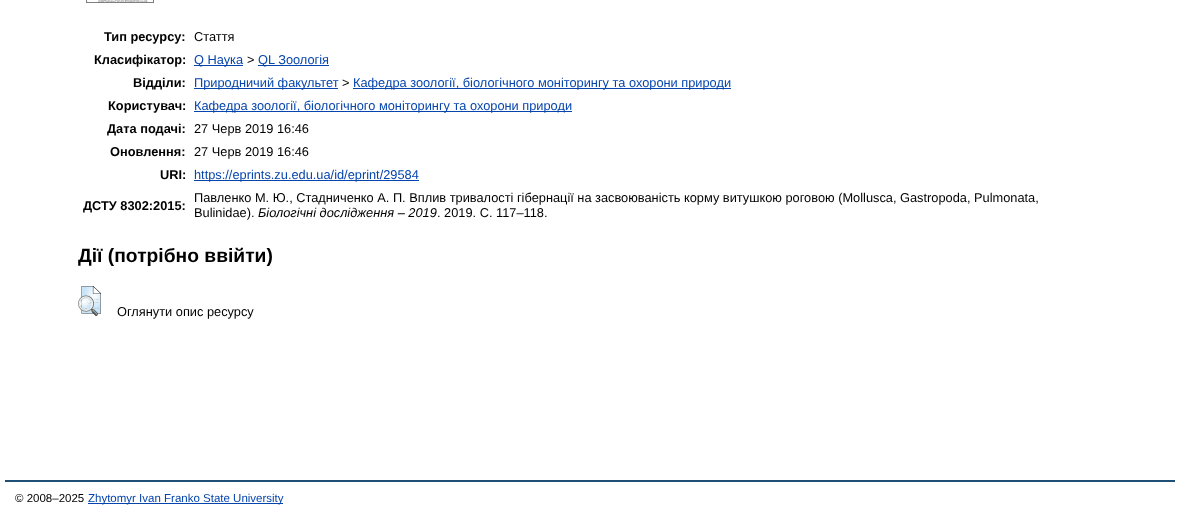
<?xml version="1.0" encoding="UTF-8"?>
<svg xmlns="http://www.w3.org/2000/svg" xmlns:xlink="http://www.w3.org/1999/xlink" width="1180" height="531">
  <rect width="100%" height="100%" fill="#ffffff" />
  <image x="86" y="0" width="68" height="3" xlink:href="image1.png" />
  <rect x="194" y="65" width="49" height="1" fill="#0645ad" />
  <rect x="258" y="65" width="71" height="1" fill="#0645ad" />
  <rect x="194" y="88" width="144" height="1" fill="#0645ad" />
  <rect x="353" y="88" width="378" height="1" fill="#0645ad" />
  <rect x="194" y="111" width="378" height="1" fill="#0645ad" />
  <rect x="194" y="180" width="225" height="1" fill="#0645ad" />
  <image x="78" y="286" width="23" height="30" xlink:href="image2.png" />
  <rect x="5" y="480" width="1170" height="2" fill="#204f76" />
  <rect x="88" y="503" width="195" height="1" fill="#0645ad" />
  <text x="104" y="41" style="font-family: Liberation Sans; font-size: 12.8px; font-weight: bold; fill: #000000">Тип ресурсу:</text>
  <text x="194" y="41" style="font-family: Liberation Sans; font-size: 12.8px; fill: #000000">Стаття</text>
  <text x="94" y="64" style="font-family: Liberation Sans; font-size: 12.8px; font-weight: bold; fill: #000000">Класифікатор:</text>
  <text x="194" y="64" style="font-family: Liberation Sans; font-size: 12.8px; fill: #0645ad">Q Наука</text>
  <text x="247" y="64" style="font-family: Liberation Sans; font-size: 12.8px; fill: #000000">&gt;</text>
  <text x="258" y="64" style="font-family: Liberation Sans; font-size: 12.8px; fill: #0645ad">QL Зоологія</text>
  <text x="133" y="87" style="font-family: Liberation Sans; font-size: 12.8px; font-weight: bold; fill: #000000">Відділи:</text>
  <text x="194" y="87" style="font-family: Liberation Sans; font-size: 12.8px; fill: #0645ad">Природничий факультет</text>
  <text x="342" y="87" style="font-family: Liberation Sans; font-size: 12.8px; fill: #000000">&gt;</text>
  <text x="353" y="87" style="font-family: Liberation Sans; font-size: 12.8px; fill: #0645ad">Кафедра зоології, біологічного моніторингу та охорони природи</text>
  <text x="108" y="110" style="font-family: Liberation Sans; font-size: 12.8px; font-weight: bold; fill: #000000">Користувач:</text>
  <text x="194" y="110" style="font-family: Liberation Sans; font-size: 12.8px; fill: #0645ad">Кафедра зоології, біологічного моніторингу та охорони природи</text>
  <text x="107" y="133" style="font-family: Liberation Sans; font-size: 12.8px; font-weight: bold; fill: #000000">Дата подачі:</text>
  <text x="194" y="133" style="font-family: Liberation Sans; font-size: 12.8px; fill: #000000">27 Черв 2019 16:46</text>
  <text x="110" y="156" style="font-family: Liberation Sans; font-size: 12.8px; font-weight: bold; fill: #000000">Оновлення:</text>
  <text x="194" y="156" style="font-family: Liberation Sans; font-size: 12.8px; fill: #000000">27 Черв 2019 16:46</text>
  <text x="160" y="179" style="font-family: Liberation Sans; font-size: 12.8px; font-weight: bold; fill: #000000">URI:</text>
  <text x="194" y="179" style="font-family: Liberation Sans; font-size: 12.8px; fill: #0645ad">https://eprints.zu.edu.ua/id/eprint/29584</text>
  <text x="83" y="210" style="font-family: Liberation Sans; font-size: 12.8px; font-weight: bold; fill: #000000">ДСТУ 8302:2015:</text>
  <text x="194" y="202" style="font-family: Liberation Sans; font-size: 12.8px; fill: #000000">Павленко М. Ю., Стадниченко А. П. Вплив тривалості гібернації на засвоюваність корму витушкою роговою (Mollusca, Gastropoda, Pulmonata,</text>
  <text x="194" y="217" style="font-family: Liberation Sans; font-size: 12.8px; fill: #000000">Bulinidae).</text>
  <text x="258" y="217" style="font-family: Liberation Sans; font-size: 12.8px; font-style: italic; fill: #000000">Біологічні дослідження – 2019</text>
  <text x="437" y="217" style="font-family: Liberation Sans; font-size: 12.8px; fill: #000000">. 2019. С. 117–118.</text>
  <text x="78" y="262" style="font-family: Liberation Sans; font-size: 19.25px; font-weight: bold; fill: #000000">Дії (потрібно ввійти)</text>
  <text x="117" y="316" style="font-family: Liberation Sans; font-size: 12.8px; fill: #000000">Оглянути опис ресурсу</text>
  <text x="15" y="502" style="font-family: Liberation Sans; font-size: 11.5px; fill: #000000">© 2008–2025</text>
  <text x="88" y="502" style="font-family: Liberation Sans; font-size: 11.5px; fill: #0645ad">Zhytomyr Ivan Franko State University</text>
</svg>
